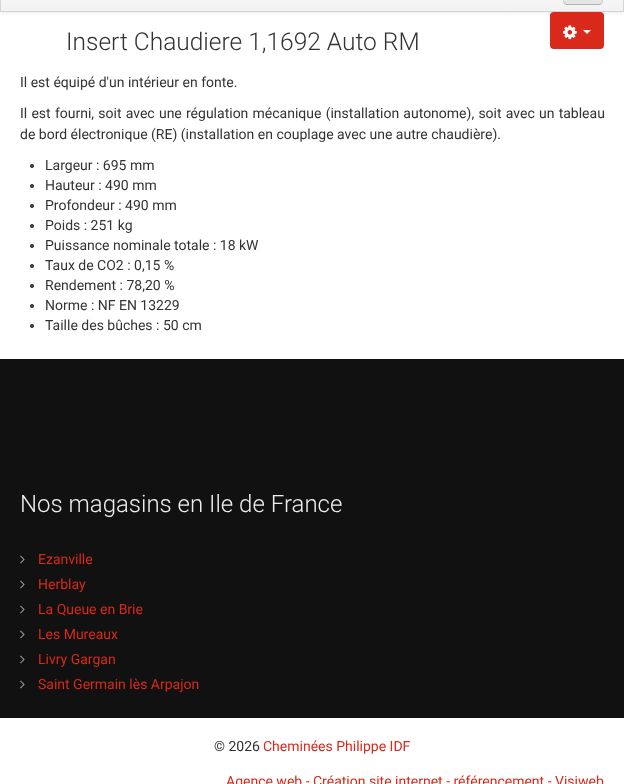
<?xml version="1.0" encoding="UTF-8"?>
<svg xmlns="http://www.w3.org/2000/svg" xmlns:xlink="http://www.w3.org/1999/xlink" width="624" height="784">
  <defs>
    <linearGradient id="g1" gradientUnits="userSpaceOnUse" x1="312" y1="-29" x2="312" y2="11"><stop offset="0" stop-color="#ffffff" /><stop offset="1" stop-color="#f2f2f2" /></linearGradient>
    <clipPath id="clip1"><rect x="563" y="-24" width="40" height="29" rx="4" /></clipPath>
    <linearGradient id="g2" gradientUnits="userSpaceOnUse" x1="583" y1="-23" x2="583" y2="4"><stop offset="0" stop-color="#f2f2f2" /><stop offset="1" stop-color="#e5e5e5" /></linearGradient>
  </defs>
  <rect width="100%" height="100%" fill="#ffffff" />
  <rect y="-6" width="624" height="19" fill="#000000" fill-opacity="0.07" filter="blur(2px)" />
  <rect x="1" width="622" height="11" fill="url(#g1)" />
  <rect x="0.5" y="-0.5" width="623" height="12" fill="none" stroke="#d4d4d4" />
  <g clip-path="url(#clip1)">
    <rect x="563" width="40" height="4" fill="url(#g2)" />
  </g>
  <path d="M 601.5 3.5 c -0.5 0.5 -1.5 1 -2.5 1 h -32 c -1 0 -2 -0.5 -2.5 -1" fill="none" stroke="#b2b2b2" />
  <path d="M 564.5 3.5 c -0.5 -0.5 -1 -1.5 -1 -2.5 v -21 c 0 -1 0.5 -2 1 -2.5 c 0.5 -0.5 1.5 -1 2.5 -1 h 32 c 1 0 2 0.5 2.5 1 c 0.5 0.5 1 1.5 1 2.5 v 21 c 0 1 -0.5 2 -1 2.5" fill="none" stroke="#000000" stroke-opacity="0.1" />
  <rect x="550" y="12" width="54" height="37" rx="4" fill="#d8291a" />
  <image x="563" y="25" width="14" height="15" xlink:href="image1.png" />
  <path d="M 583 30 h 8 l -4 4 z" fill="#ffffff" />
  <circle cx="32" cy="166" r="2" fill="#333333" />
  <circle cx="32" cy="186" r="2" fill="#333333" />
  <circle cx="32" cy="206" r="2" fill="#333333" />
  <circle cx="32" cy="226" r="2" fill="#333333" />
  <circle cx="32" cy="246" r="2" fill="#333333" />
  <circle cx="32" cy="266" r="2" fill="#333333" />
  <circle cx="32" cy="286" r="2" fill="#333333" />
  <circle cx="32" cy="306" r="2" fill="#333333" />
  <circle cx="32" cy="326" r="2" fill="#333333" />
  <rect y="359" width="624" height="359" fill="#111111" />
  <image x="20" y="555" width="5" height="9" xlink:href="image2.png" />
  <image x="20" y="580" width="5" height="9" xlink:href="image2.png" />
  <image x="20" y="605" width="5" height="9" xlink:href="image2.png" />
  <image x="20" y="630" width="5" height="9" xlink:href="image2.png" />
  <image x="20" y="655" width="5" height="9" xlink:href="image2.png" />
  <image x="20" y="680" width="5" height="9" xlink:href="image2.png" />
  <text x="66" y="50" style="font-family: Roboto; font-size: 24.5px; font-weight: 300; fill: #333333">Insert Chaudiere 1,1692 Auto RM</text>
  <text x="20" y="87" style="font-family: Roboto; font-size: 14px; fill: #333333">Il est équipé d'un intérieur en fonte.</text>
  <text x="20" y="118" word-spacing="0.75" style="font-family: Roboto; font-size: 14px; fill: #333333">Il est fourni, soit avec une régulation mécanique (installation autonome), soit avec un tableau</text>
  <text x="20" y="139" style="font-family: Roboto; font-size: 14px; fill: #333333">de bord électronique (RE) (installation en couplage avec une autre chaudière).</text>
  <text x="45" y="170" style="font-family: Roboto; font-size: 14px; fill: #333333">Largeur : 695 mm</text>
  <text x="45" y="190" style="font-family: Roboto; font-size: 14px; fill: #333333">Hauteur : 490 mm</text>
  <text x="45" y="210" style="font-family: Roboto; font-size: 14px; fill: #333333">Profondeur : 490 mm</text>
  <text x="45" y="230" style="font-family: Roboto; font-size: 14px; fill: #333333">Poids : 251 kg</text>
  <text x="45" y="250" style="font-family: Roboto; font-size: 14px; fill: #333333">Puissance nominale totale : 18 kW</text>
  <text x="45" y="270" style="font-family: Roboto; font-size: 14px; fill: #333333">Taux de CO2 : 0,15 %</text>
  <text x="45" y="290" style="font-family: Roboto; font-size: 14px; fill: #333333">Rendement : 78,20 %</text>
  <text x="45" y="310" style="font-family: Roboto; font-size: 14px; fill: #333333">Norme : NF EN 13229</text>
  <text x="45" y="330" style="font-family: Roboto; font-size: 14px; fill: #333333">Taille des bûches : 50 cm</text>
  <text x="20" y="512" style="font-family: Roboto; font-size: 24px; font-weight: 300; fill: #eeeeee">Nos magasins en Ile de France</text>
  <text x="38" y="564" style="font-family: Roboto; font-size: 14px; fill: #d8291a">Ezanville</text>
  <text x="38" y="589" style="font-family: Roboto; font-size: 14px; fill: #d8291a">Herblay</text>
  <text x="38" y="614" style="font-family: Roboto; font-size: 14px; fill: #d8291a">La Queue en Brie</text>
  <text x="38" y="639" style="font-family: Roboto; font-size: 14px; fill: #d8291a">Les Mureaux</text>
  <text x="38" y="664" style="font-family: Roboto; font-size: 14px; fill: #d8291a">Livry Gargan</text>
  <text x="38" y="689" style="font-family: Roboto; font-size: 14px; fill: #d8291a">Saint Germain lès Arpajon</text>
  <text x="214" y="751" style="font-family: Roboto; font-size: 14px; fill: #333333">© 2026</text>
  <text x="263" y="751" style="font-family: Roboto; font-size: 14px; fill: #d8291a">Cheminées Philippe IDF</text>
  <text x="226" y="786" style="font-family: Roboto; font-size: 14px; fill: #d8291a">Agence web - Création site internet - référencement - Visiweb</text>
</svg>
